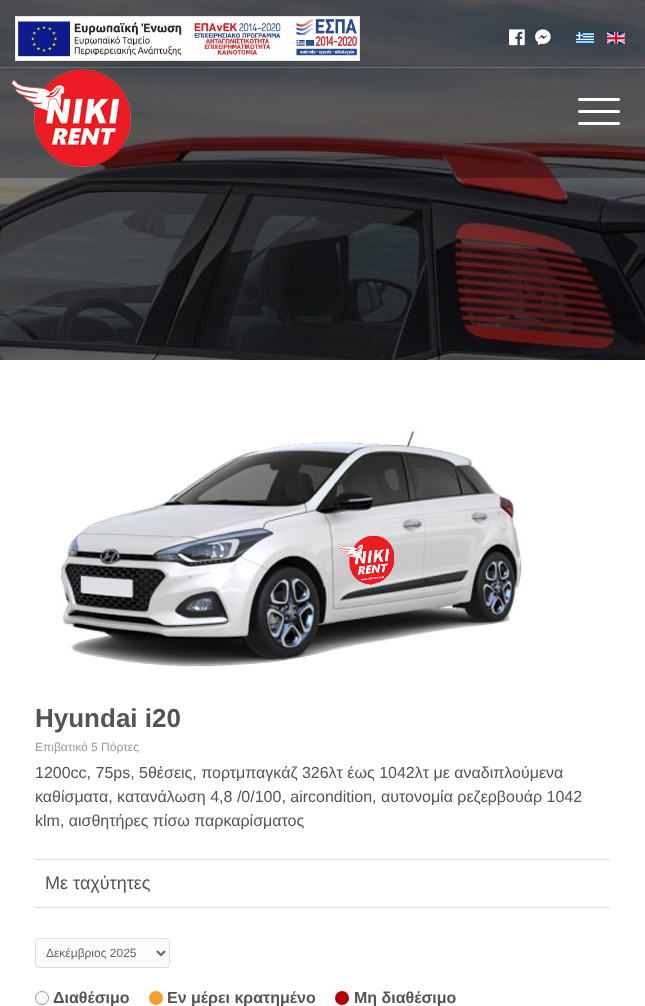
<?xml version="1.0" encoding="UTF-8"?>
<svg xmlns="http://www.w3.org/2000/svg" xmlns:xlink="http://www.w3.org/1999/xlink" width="645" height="1006">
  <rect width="100%" height="100%" fill="#ffffff" />
  <image x="0" y="0" width="645" height="360" xlink:href="image1.png" />
  <rect width="645" height="178" fill="#000000" fill-opacity="0.3" />
  <rect y="67" width="645" height="1" fill="#ffffff" fill-opacity="0.2" />
  <image x="15" y="16" width="345" height="45" xlink:href="image2.png" />
  <image x="509" y="29" width="16" height="17" xlink:href="image3.png" />
  <image x="535" y="29" width="16" height="16" xlink:href="image4.png" />
  <image x="576" y="32" width="18" height="12" xlink:href="image5.png" />
  <image x="607" y="32" width="18" height="12" xlink:href="image6.png" />
  <image x="11" y="69" width="120" height="98" xlink:href="image7.png" />
  <rect x="578" y="98" width="42" height="3" rx="1.5" fill="#ffffff" />
  <rect x="578" y="110" width="42" height="3" rx="1.5" fill="#ffffff" />
  <rect x="578" y="122" width="42" height="3" rx="1.5" fill="#ffffff" />
  <image x="59" y="424" width="464" height="243" xlink:href="image8.png" />
  <rect x="35" y="859" width="575" height="1" fill="#dddddd" />
  <rect x="35" y="907" width="575" height="1" fill="#dddddd" />
  <rect x="35.5" y="938.5" width="134" height="29" rx="3.5" fill="#fbfbfb" stroke="#dddddd" />
  <path d="M 157 951 l 4 4 l 4 -4" fill="none" stroke="#666666" stroke-width="2" />
  <circle cx="42" cy="998" r="6.5" fill="#f9f9f9" stroke="#999999" />
  <circle cx="156" cy="998" r="7" fill="#f89d33" />
  <circle cx="342" cy="998" r="7" fill="#b20000" />
  <text x="35" y="727" style="font-family: Liberation Sans; font-size: 26px; font-weight: bold; fill: #545454">Hyundai i20</text>
  <text x="35" y="751" style="font-family: Liberation Sans; font-size: 12px; fill: #999999">Επιβατικό 5 Πόρτες</text>
  <text x="35" y="778" style="font-family: Liberation Sans; font-size: 16px; fill: #545454">1200cc, 75ps, 5θέσεις, πορτμπαγκάζ 326λτ έως 1042λτ με αναδιπλούμενα</text>
  <text x="35" y="802" style="font-family: Liberation Sans; font-size: 16px; fill: #545454">καθίσματα, κατανάλωση 4,8 /0/100, aircondition, αυτονομία ρεζερβουάρ 1042</text>
  <text x="35" y="826" style="font-family: Liberation Sans; font-size: 16px; fill: #545454">klm, αισθητήρες πίσω παρκαρίσματος</text>
  <text x="45" y="889" style="font-family: Liberation Sans; font-size: 18px; fill: #545454">Με ταχύτητες</text>
  <text x="46" y="957" style="font-family: Liberation Sans; font-size: 12px; fill: #666666">Δεκέμβριος 2025</text>
  <text x="53" y="1003" style="font-family: Liberation Sans; font-size: 16px; font-weight: bold; fill: #545454">Διαθέσιμο</text>
  <text x="167" y="1003" style="font-family: Liberation Sans; font-size: 16px; font-weight: bold; fill: #545454">Εν μέρει κρατημένο</text>
  <text x="354" y="1003" style="font-family: Liberation Sans; font-size: 16px; font-weight: bold; fill: #545454">Μη διαθέσιμο</text>
</svg>
